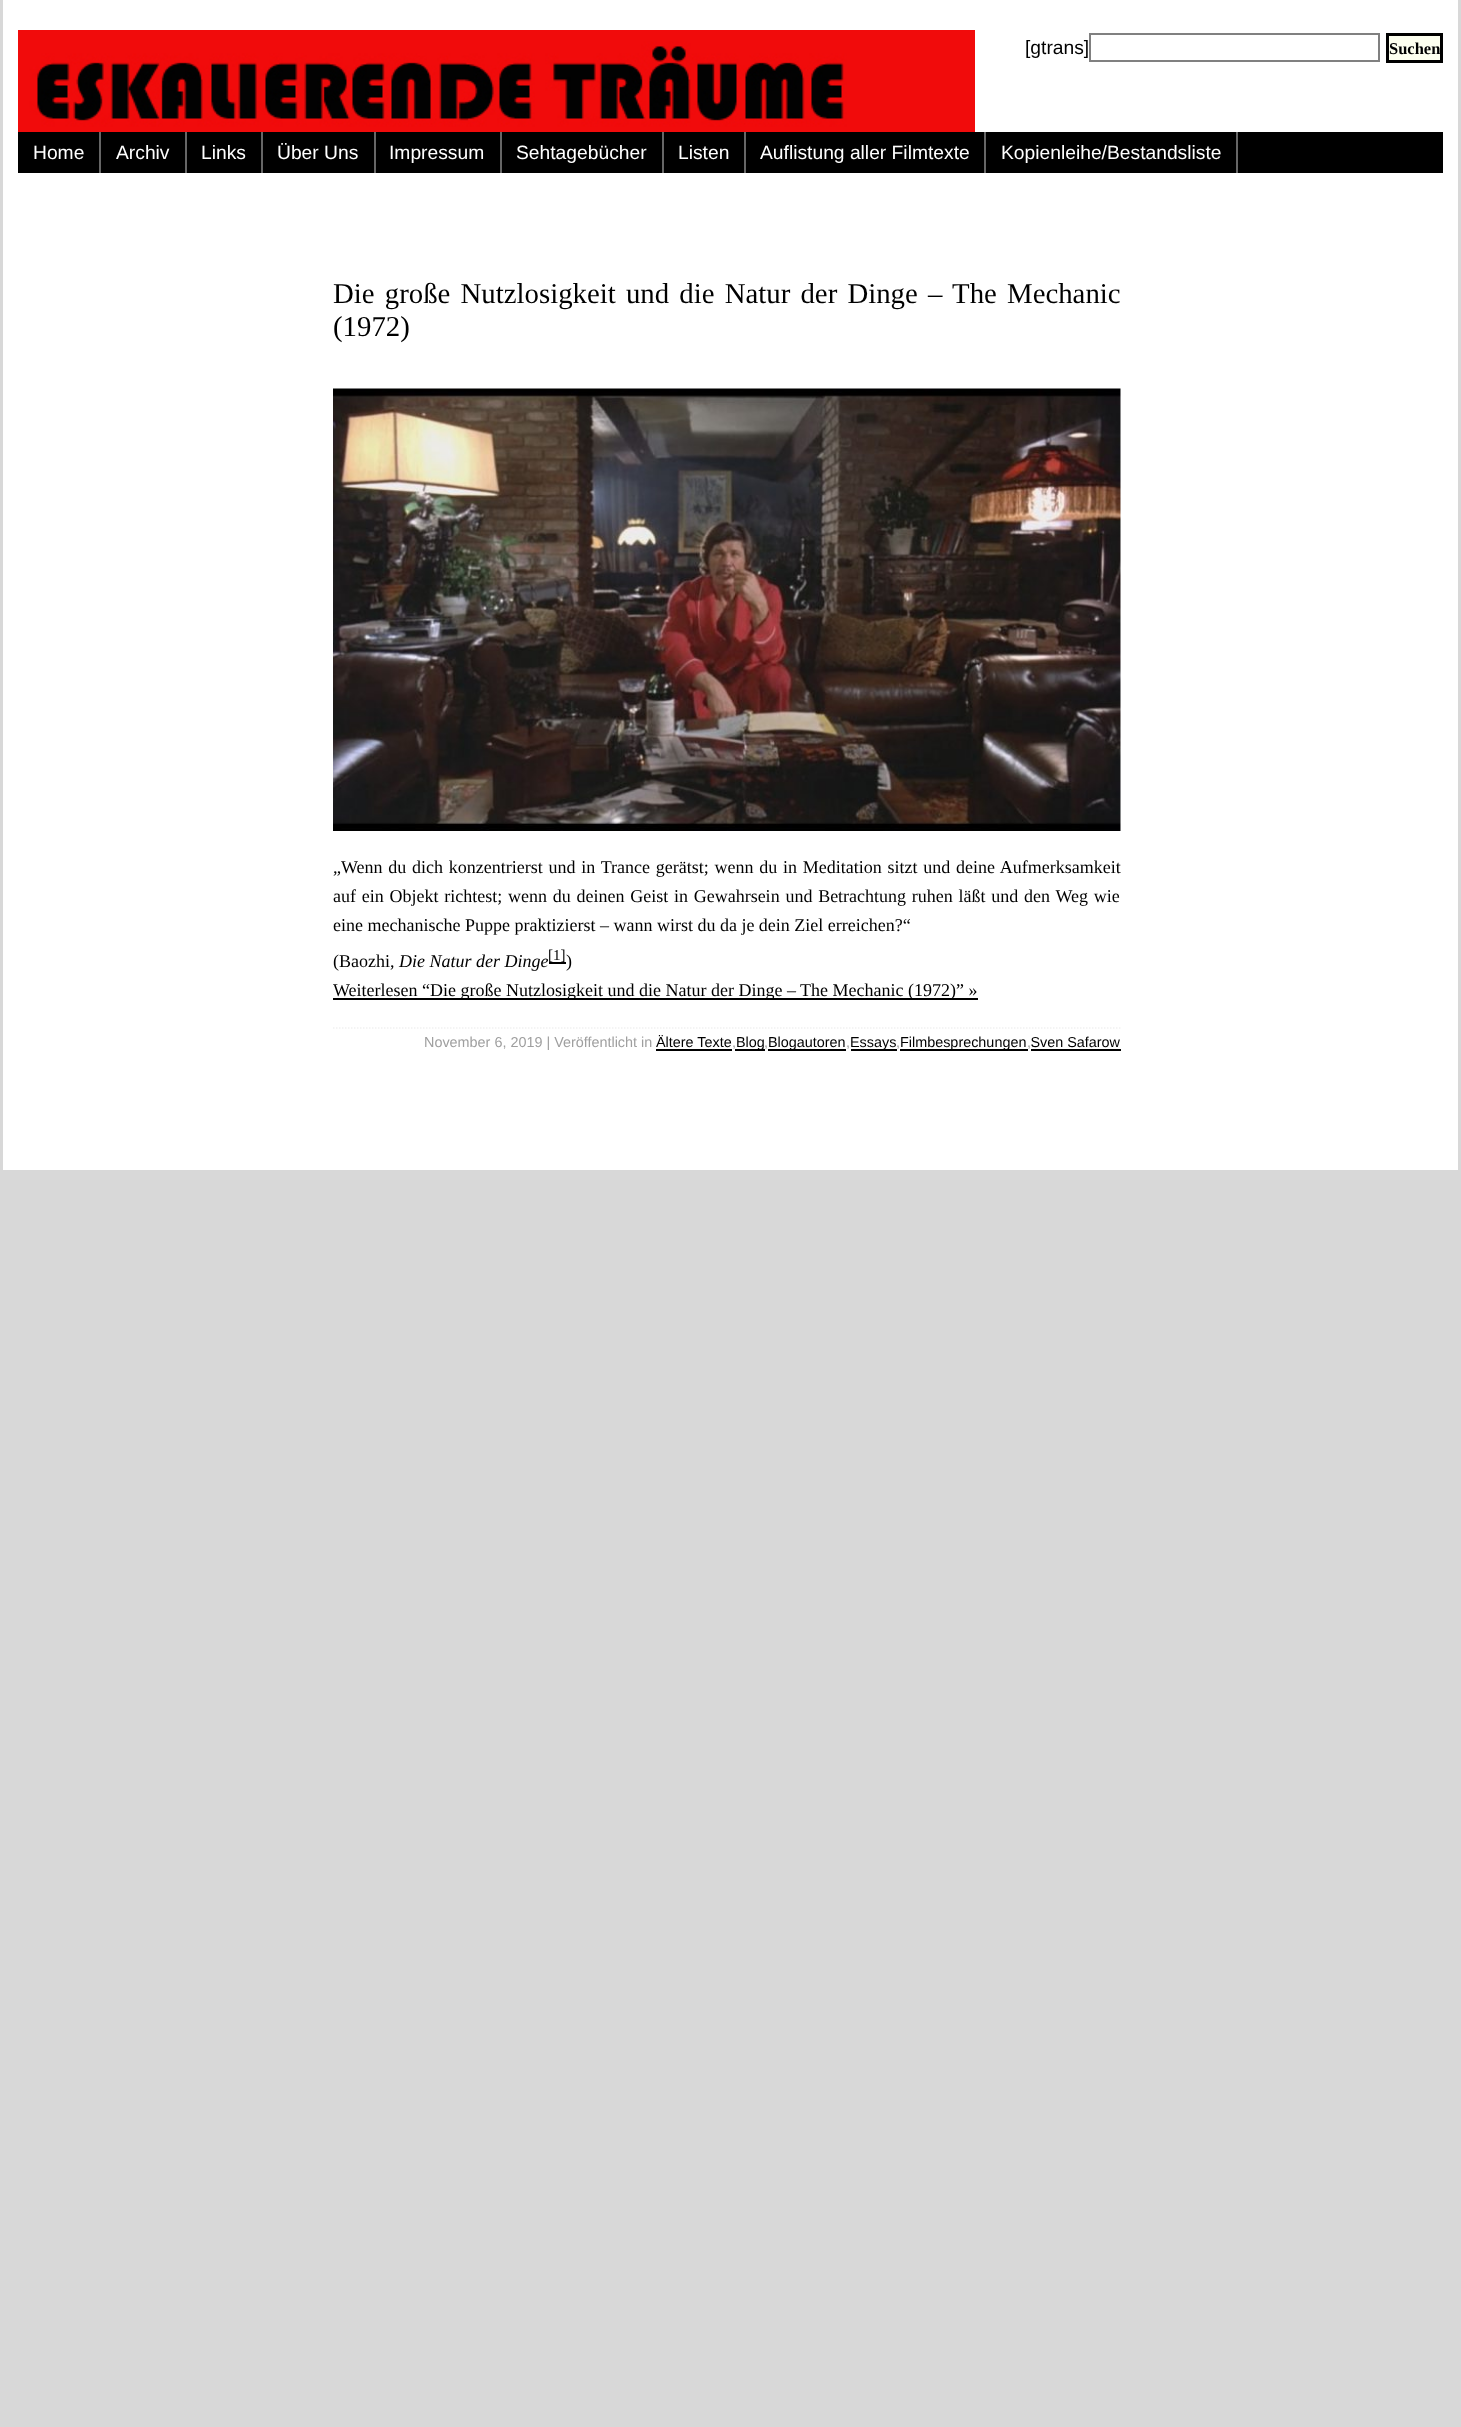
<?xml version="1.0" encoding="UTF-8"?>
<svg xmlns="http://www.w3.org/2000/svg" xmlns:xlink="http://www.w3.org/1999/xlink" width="1461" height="2427">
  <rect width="100%" height="100%" fill="#d8d8d8" />
  <rect x="3" width="1455" height="1170" fill="#ffffff" />
  <image x="18" y="30" width="957" height="102" xlink:href="image1.png" />
  <rect x="1090" y="34" width="289" height="27" fill="none" stroke="#808080" stroke-width="2" />
  <rect x="1387.5" y="34.5" width="54" height="27" fill="#fdffef" stroke="#000000" stroke-width="3" />
  <rect x="18" y="132" width="1425" height="41" fill="#000000" />
  <rect x="99" y="132" width="2" height="41" fill="#666666" />
  <rect x="185" y="132" width="2" height="41" fill="#666666" />
  <rect x="261" y="132" width="2" height="41" fill="#666666" />
  <rect x="374" y="132" width="2" height="41" fill="#666666" />
  <rect x="500" y="132" width="2" height="41" fill="#666666" />
  <rect x="662" y="132" width="2" height="41" fill="#666666" />
  <rect x="744" y="132" width="2" height="41" fill="#666666" />
  <rect x="984" y="132" width="2" height="41" fill="#666666" />
  <rect x="1236" y="132" width="2" height="41" fill="#666666" />
  <image x="333" y="388" width="788" height="443" xlink:href="image2.png" />
  <rect x="549" y="962" width="17" height="2" fill="#000000" />
  <rect x="333" y="998" width="645" height="2" fill="#000000" />
  <path d="M 333 1028 h 787.5" fill="none" stroke="#f1f1f1" stroke-width="1.5" stroke-dasharray="1.5 1.5" />
  <rect x="656" y="1049" width="76" height="2" fill="#000000" />
  <rect x="735" y="1049" width="30" height="2" fill="#000000" />
  <rect x="768" y="1049" width="78" height="2" fill="#000000" />
  <rect x="851" y="1049" width="46" height="2" fill="#000000" />
  <rect x="900" y="1049" width="128" height="2" fill="#000000" />
  <rect x="1031" y="1049" width="90" height="2" fill="#000000" />
  <text x="1025" y="54" style="font-family: Liberation Sans; font-size: 19.25px; fill: #000000">[gtrans]</text>
  <text x="1389" y="54" style="font-family: Liberation Serif; font-size: 16.5px; font-weight: bold; fill: #000000">Suchen</text>
  <text x="33" y="159" style="font-family: Liberation Sans; font-size: 19.25px; fill: #ffffff">Home</text>
  <text x="116" y="159" style="font-family: Liberation Sans; font-size: 19.25px; fill: #ffffff">Archiv</text>
  <text x="201" y="159" style="font-family: Liberation Sans; font-size: 19.25px; fill: #ffffff">Links</text>
  <text x="277" y="159" style="font-family: Liberation Sans; font-size: 19.25px; fill: #ffffff">Über Uns</text>
  <text x="389" y="159" style="font-family: Liberation Sans; font-size: 19.25px; fill: #ffffff">Impressum</text>
  <text x="516" y="159" style="font-family: Liberation Sans; font-size: 19.25px; fill: #ffffff">Sehtagebücher</text>
  <text x="678" y="159" style="font-family: Liberation Sans; font-size: 19.25px; fill: #ffffff">Listen</text>
  <text x="760" y="159" style="font-family: Liberation Sans; font-size: 19.25px; fill: #ffffff">Auflistung aller Filmtexte</text>
  <text x="1001" y="159" style="font-family: Liberation Sans; font-size: 19.25px; fill: #ffffff">Kopienleihe/Bestandsliste</text>
  <text x="333" y="303" word-spacing="3" style="font-family: Liberation Serif; font-size: 28.8px; fill: #000000">Die große Nutzlosigkeit und die Natur der Dinge – The Mechanic</text>
  <text x="333" y="336" style="font-family: Liberation Serif; font-size: 28.8px; fill: #000000">(1972)</text>
  <text x="333" y="873" word-spacing="1.25" style="font-family: Liberation Serif; font-size: 18px; fill: #000000">„Wenn du dich konzentrierst und in Trance gerätst; wenn du in Meditation sitzt und deine Aufmerksamkeit</text>
  <text x="333" y="902" word-spacing="1.25" style="font-family: Liberation Serif; font-size: 18px; fill: #000000">auf ein Objekt richtest; wenn du deinen Geist in Gewahrsein und Betrachtung ruhen läßt und den Weg wie</text>
  <text x="333" y="931" style="font-family: Liberation Serif; font-size: 18px; fill: #000000">eine mechanische Puppe praktizierst – wann wirst du da je dein Ziel erreichen?“</text>
  <text x="333" y="967" style="font-family: Liberation Serif; font-size: 18px; fill: #000000">(Baozhi,</text>
  <text x="399" y="967" style="font-family: Liberation Serif; font-size: 18px; font-style: italic; fill: #000000">Die Natur der Dinge</text>
  <text x="548" y="960" style="font-family: Liberation Serif; font-size: 15px; fill: #000000">[1]</text>
  <text x="566" y="967" style="font-family: Liberation Serif; font-size: 18px; fill: #000000">)</text>
  <text x="333" y="996" style="font-family: Liberation Serif; font-size: 18px; fill: #000000">Weiterlesen “Die große Nutzlosigkeit und die Natur der Dinge – The Mechanic (1972)” »</text>
  <text x="424" y="1047" style="font-family: Liberation Sans; font-size: 14.4px; fill: #9f9f9f">November 6, 2019 | Veröffentlicht in</text>
  <text x="656" y="1047" style="font-family: Liberation Sans; font-size: 14.4px; fill: #000000">Ältere Texte</text>
  <text x="732" y="1047" style="font-family: Liberation Sans; font-size: 14.4px; fill: #9f9f9f">,</text>
  <text x="736" y="1047" style="font-family: Liberation Sans; font-size: 14.4px; fill: #000000">Blog</text>
  <text x="764" y="1047" style="font-family: Liberation Sans; font-size: 14.4px; fill: #9f9f9f">,</text>
  <text x="768" y="1047" style="font-family: Liberation Sans; font-size: 14.4px; fill: #000000">Blogautoren</text>
  <text x="846" y="1047" style="font-family: Liberation Sans; font-size: 14.4px; fill: #9f9f9f">,</text>
  <text x="850" y="1047" style="font-family: Liberation Sans; font-size: 14.4px; fill: #000000">Essays</text>
  <text x="896" y="1047" style="font-family: Liberation Sans; font-size: 14.4px; fill: #9f9f9f">,</text>
  <text x="900" y="1047" style="font-family: Liberation Sans; font-size: 14.4px; fill: #000000">Filmbesprechungen Sven Safarow</text>
  <text x="1027" y="1047" style="font-family: Liberation Sans; font-size: 14.4px; fill: #9f9f9f">,</text>
</svg>
